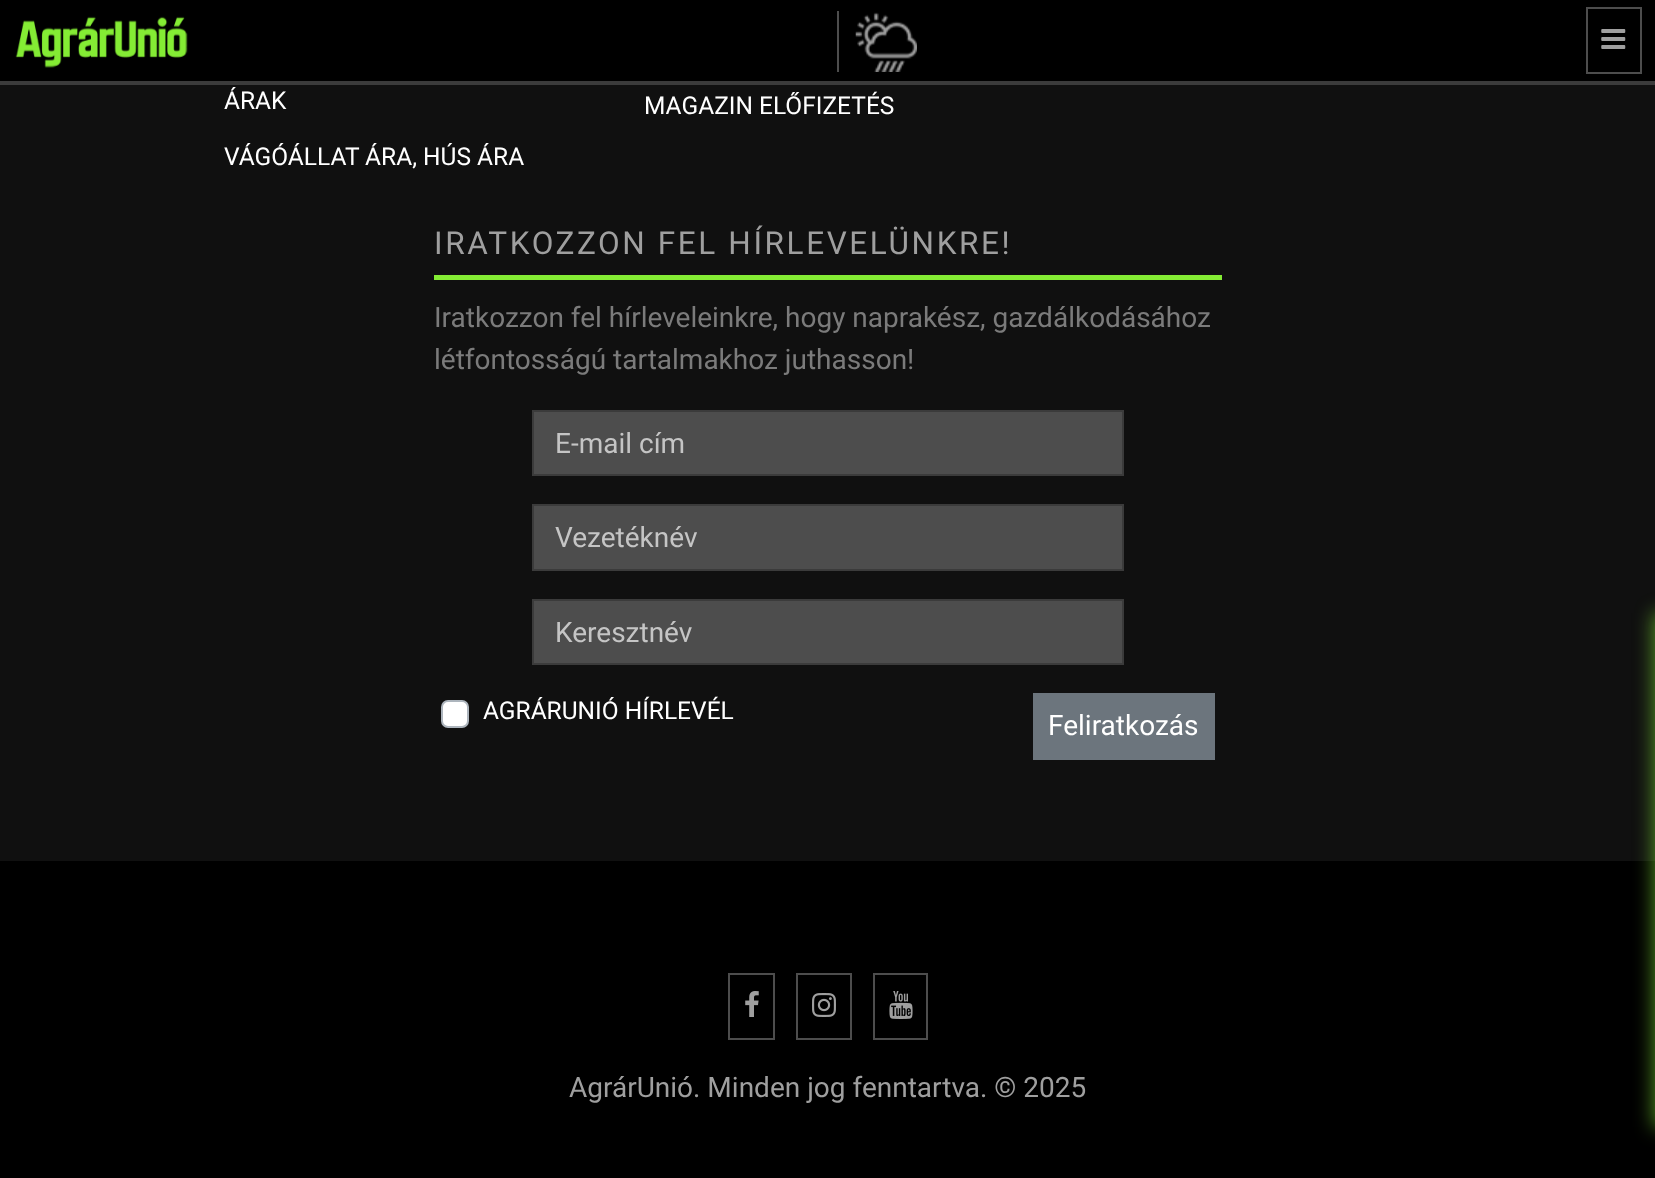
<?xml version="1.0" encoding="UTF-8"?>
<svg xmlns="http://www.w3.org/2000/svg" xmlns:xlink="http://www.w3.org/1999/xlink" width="1655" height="1178">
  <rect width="100%" height="100%" fill="#101010" />
  <rect width="1655" height="81" fill="#000000" />
  <rect y="81" width="1655" height="4" fill="#3b3b3b" />
  <image x="15" y="16" width="173" height="52" xlink:href="image1.png" />
  <rect x="837" y="11" width="2" height="61" fill="#4d4d4d" />
  <image x="855" y="12" width="62" height="60" xlink:href="image2.png" />
  <rect x="1587" y="8" width="54" height="65" fill="none" stroke="#4d4d4d" stroke-width="2" />
  <image x="1601" y="29" width="25" height="20" xlink:href="image3.png" />
  <rect x="434" y="275" width="788" height="5" fill="#84ec34" />
  <rect x="533" y="411" width="590" height="64" fill="#4d4d4d" stroke="#3b3b3b" stroke-width="2" />
  <rect x="533" y="505" width="590" height="65" fill="#4d4d4d" stroke="#3b3b3b" stroke-width="2" />
  <rect x="533" y="600" width="590" height="64" fill="#4d4d4d" stroke="#3b3b3b" stroke-width="2" />
  <rect x="442" y="701" width="26" height="26" rx="6" fill="#ffffff" stroke="#adb5bd" stroke-width="2" />
  <rect x="1033" y="693" width="182" height="67" fill="#6c757d" />
  <rect y="861" width="1655" height="317" fill="#000000" />
  <rect x="729" y="974" width="45" height="65" fill="none" stroke="#4d4d4d" stroke-width="2" />
  <image x="745" y="991" width="14" height="26" xlink:href="image4.png" />
  <rect x="797" y="974" width="54" height="65" fill="none" stroke="#4d4d4d" stroke-width="2" />
  <image x="812" y="993" width="24" height="24" xlink:href="image5.png" />
  <rect x="874" y="974" width="53" height="65" fill="none" stroke="#4d4d4d" stroke-width="2" />
  <image x="889" y="991" width="24" height="28" xlink:href="image6.png" />
  <rect x="1654" y="613" width="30" height="514" fill="#84ec34" fill-opacity="0.62" filter="blur(9.5px)" />
  <text x="224" y="109" style="font-family: Roboto; font-size: 24.5px; fill: #ffffff">ÁRAK</text>
  <text x="224" y="165" style="font-family: Roboto; font-size: 24.5px; fill: #ffffff">VÁGÓÁLLAT ÁRA, HÚS ÁRA</text>
  <text x="644" y="114" style="font-family: Roboto; font-size: 24.5px; fill: #ffffff">MAGAZIN ELŐFIZETÉS</text>
  <text x="434" y="254" style="font-family: Roboto; font-size: 31.5px; letter-spacing: 2.6px; fill: #9f9f9f">IRATKOZZON FEL HÍRLEVELÜNKRE!</text>
  <text x="434" y="327" style="font-family: Roboto; font-size: 28px; fill: #7b7b7b">Iratkozzon fel hírleveleinkre, hogy naprakész, gazdálkodásához</text>
  <text x="434" y="369" style="font-family: Roboto; font-size: 28px; fill: #7b7b7b">létfontosságú tartalmakhoz juthasson!</text>
  <text x="555" y="453" style="font-family: Roboto; font-size: 28px; fill: #c5c5c5">E-mail cím</text>
  <text x="555" y="547" style="font-family: Roboto; font-size: 28px; fill: #c5c5c5">Vezetéknév</text>
  <text x="555" y="642" style="font-family: Roboto; font-size: 28px; fill: #c5c5c5">Keresztnév</text>
  <text x="483" y="719" style="font-family: Roboto; font-size: 24.5px; fill: #ffffff">AGRÁRUNIÓ HÍRLEVÉL</text>
  <text x="1048" y="735" style="font-family: Roboto; font-size: 28px; fill: #ffffff">Feliratkozás</text>
  <text x="569" y="1097" style="font-family: Roboto; font-size: 28px; fill: #9f9f9f">AgrárUnió. Minden jog fenntartva. © 2025</text>
</svg>
